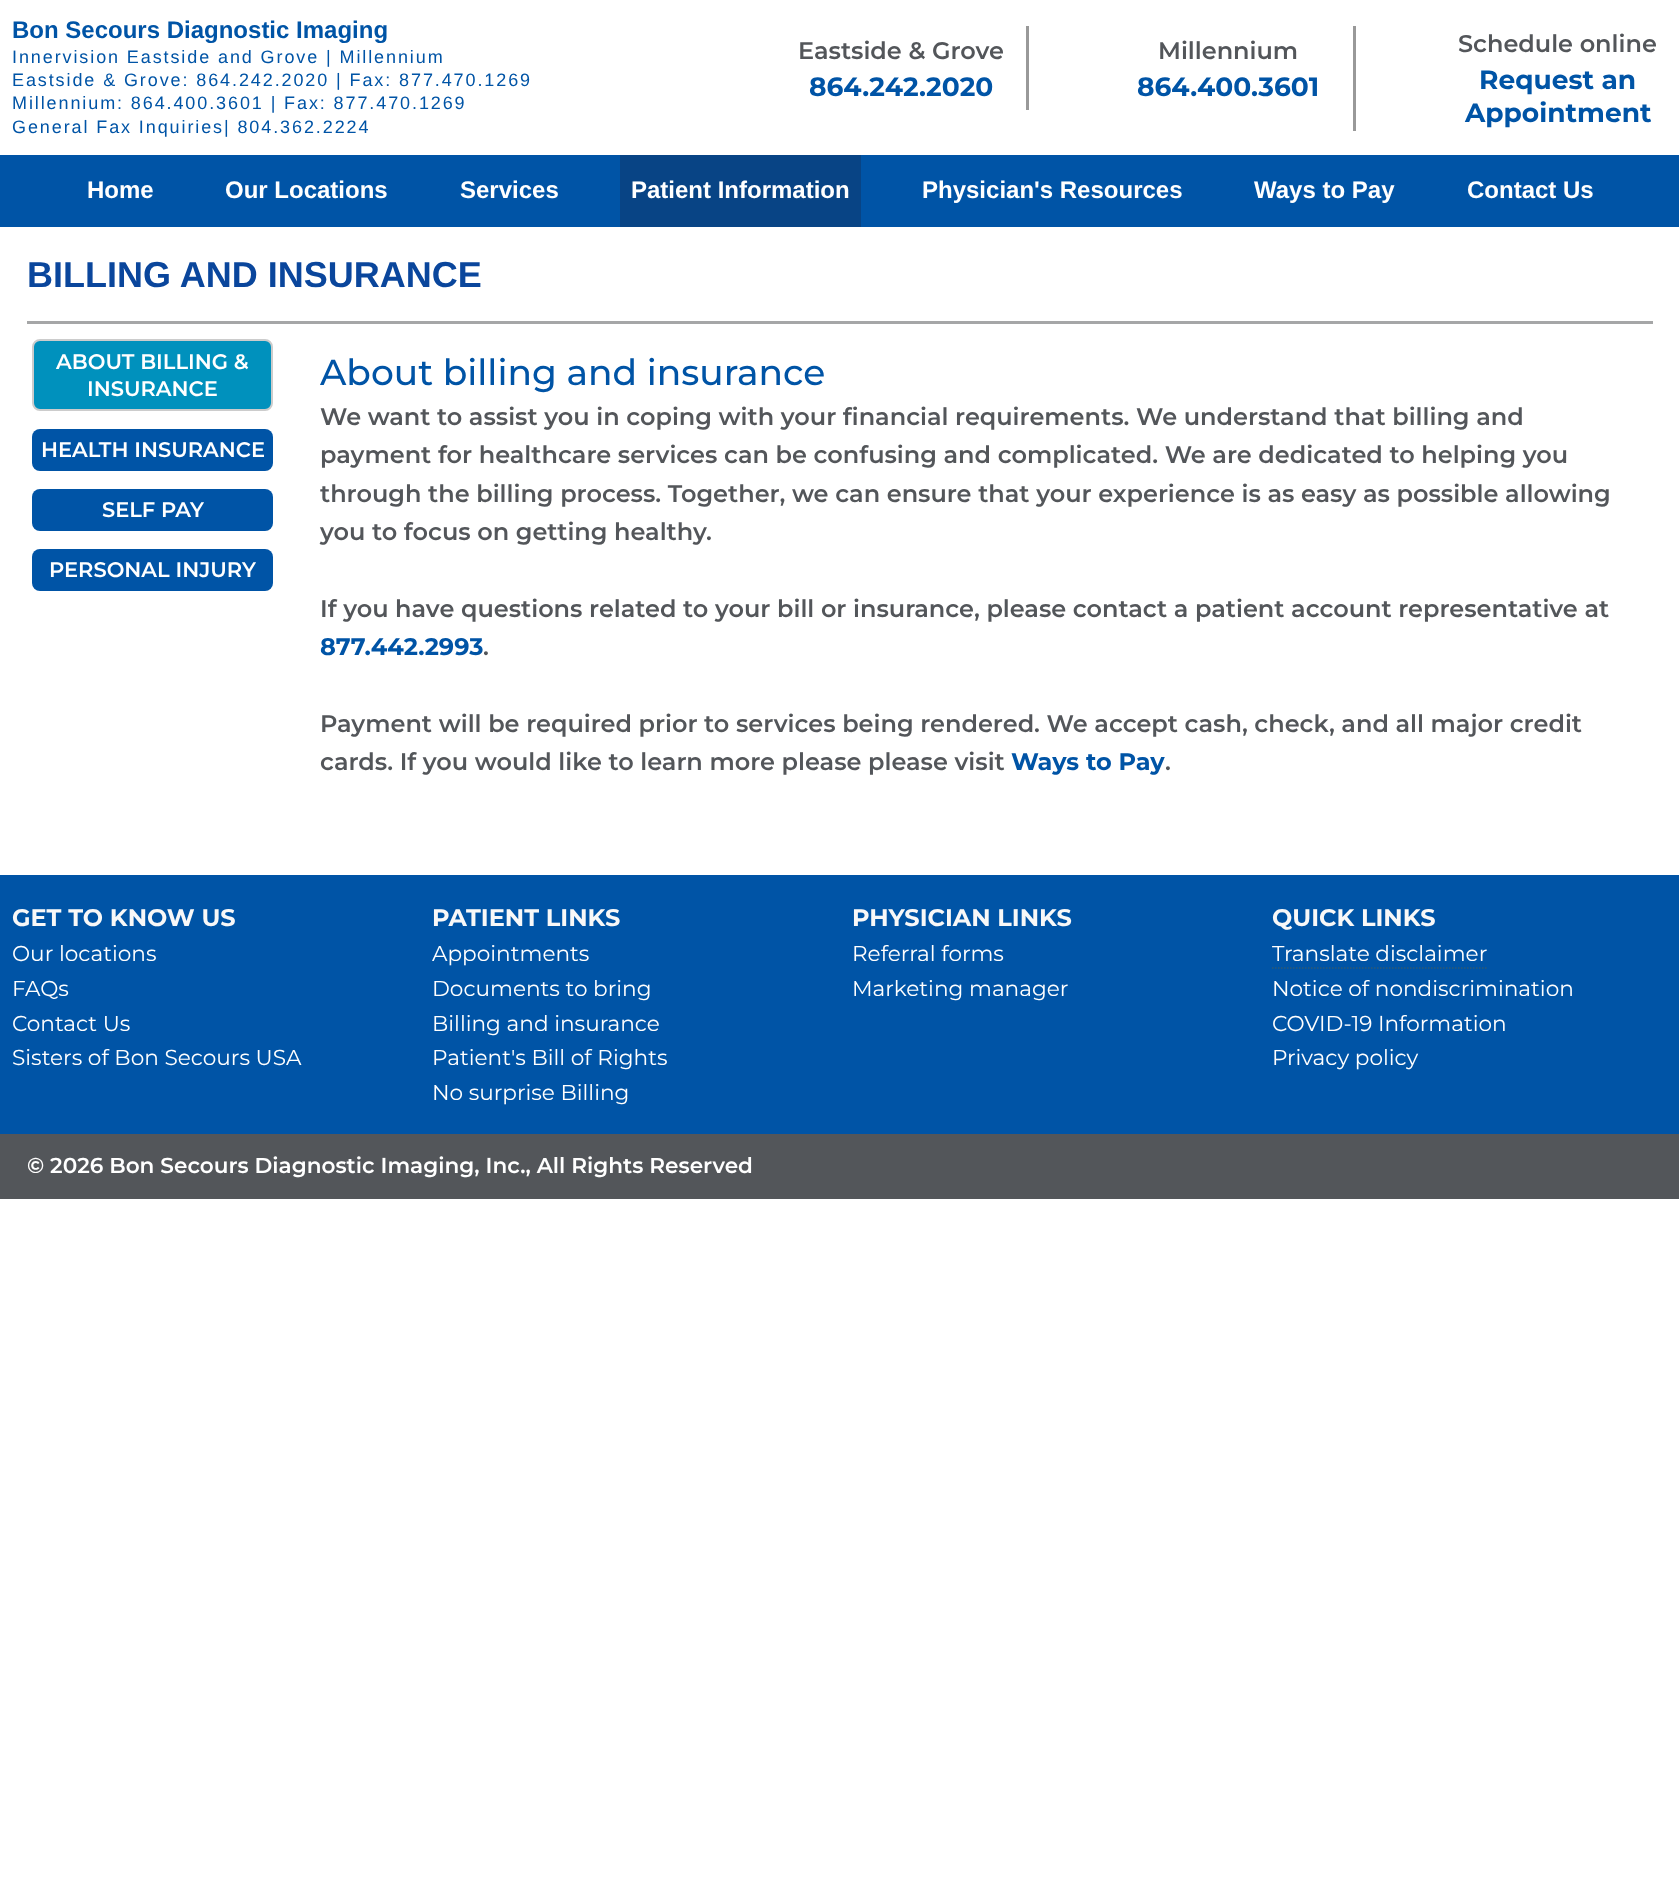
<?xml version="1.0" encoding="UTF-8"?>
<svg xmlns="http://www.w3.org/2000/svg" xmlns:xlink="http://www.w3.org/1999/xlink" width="1679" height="1883">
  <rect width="100%" height="100%" fill="#ffffff" />
  <rect x="1026" y="26" width="3" height="84" fill="#999999" />
  <rect x="1353" y="26" width="3" height="105" fill="#999999" />
  <rect y="155" width="1679" height="72" fill="#0054a6" />
  <rect x="620" y="155" width="241" height="72" fill="#084485" />
  <rect x="27" y="321" width="1626" height="3" fill="#a5a6a7" />
  <rect x="33" y="340" width="239" height="70" rx="7" fill="#0091bd" stroke="#cccccc" stroke-width="2" />
  <rect x="32" y="429" width="241" height="42" rx="8" fill="#0054a6" />
  <rect x="32" y="489" width="241" height="42" rx="8" fill="#0054a6" />
  <rect x="32" y="549" width="241" height="42" rx="8" fill="#0054a6" />
  <rect y="875" width="1679" height="259" fill="#0054a6" />
  <path d="M 1272 968 h 214.5" fill="none" stroke="#305a72" stroke-width="1.5" stroke-dasharray="1.5 1.5" />
  <rect y="1134" width="1679" height="65" fill="#53565a" />
  <text x="12" y="38" style="font-family: Liberation Sans; font-size: 24px; font-weight: bold; fill: #0054a6">Bon Secours Diagnostic Imaging</text>
  <text x="12" y="63" style="font-family: Liberation Sans; font-size: 18px; letter-spacing: 1.9px; fill: #0054a6">Innervision Eastside and Grove | Millennium</text>
  <text x="12" y="86" style="font-family: Liberation Sans; font-size: 18px; letter-spacing: 1.9px; fill: #0054a6">Eastside &amp; Grove: 864.242.2020 | Fax: 877.470.1269</text>
  <text x="12" y="109" style="font-family: Liberation Sans; font-size: 18px; letter-spacing: 1.9px; fill: #0054a6">Millennium: 864.400.3601 | Fax: 877.470.1269</text>
  <text x="12" y="133" style="font-family: Liberation Sans; font-size: 18px; letter-spacing: 1.9px; fill: #0054a6">General Fax Inquiries| 804.362.2224</text>
  <text x="798" y="59" style="font-family: 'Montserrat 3'; font-size: 24px; font-weight: 100; fill: #53565a">Eastside &amp; Grove</text>
  <text x="809" y="96" style="font-family: Montserrat; font-size: 26.5px; font-weight: 100; fill: #0054a6">864.242.2020</text>
  <text x="1158" y="59" style="font-family: 'Montserrat 3'; font-size: 24px; font-weight: 100; fill: #53565a">Millennium</text>
  <text x="1137" y="96" style="font-family: Montserrat; font-size: 26.5px; font-weight: 100; fill: #0054a6">864.400.3601</text>
  <text x="1458" y="52" style="font-family: 'Montserrat 3'; font-size: 24px; font-weight: 100; fill: #53565a">Schedule online</text>
  <text x="1479" y="89" style="font-family: Montserrat; font-size: 26.5px; font-weight: 100; fill: #0054a6">Request an</text>
  <text x="1465" y="122" style="font-family: Montserrat; font-size: 26.5px; font-weight: 100; fill: #0054a6">Appointment</text>
  <text x="87" y="198" style="font-family: Liberation Sans; font-size: 24px; font-weight: bold; fill: #ffffff">Home</text>
  <text x="225" y="198" style="font-family: Liberation Sans; font-size: 24px; font-weight: bold; fill: #ffffff">Our Locations</text>
  <text x="460" y="198" style="font-family: Liberation Sans; font-size: 24px; font-weight: bold; fill: #ffffff">Services</text>
  <text x="631" y="198" style="font-family: Liberation Sans; font-size: 24px; font-weight: bold; fill: #ffffff">Patient Information</text>
  <text x="922" y="198" style="font-family: Liberation Sans; font-size: 24px; font-weight: bold; fill: #ffffff">Physician's Resources</text>
  <text x="1254" y="198" style="font-family: Liberation Sans; font-size: 24px; font-weight: bold; fill: #ffffff">Ways to Pay</text>
  <text x="1467" y="198" style="font-family: Liberation Sans; font-size: 24px; font-weight: bold; fill: #ffffff">Contact Us</text>
  <text x="27" y="287" style="font-family: Liberation Sans; font-size: 36px; font-weight: bold; fill: #0a469c">BILLING AND INSURANCE</text>
  <text x="56" y="369" style="font-family: 'Montserrat 3'; font-size: 21px; font-weight: 100; fill: #ffffff">ABOUT BILLING &amp;</text>
  <text x="87" y="396" style="font-family: 'Montserrat 3'; font-size: 21px; font-weight: 100; fill: #ffffff">INSURANCE</text>
  <text x="41" y="457" style="font-family: 'Montserrat 3'; font-size: 21px; font-weight: 100; fill: #ffffff">HEALTH INSURANCE</text>
  <text x="102" y="517" style="font-family: 'Montserrat 3'; font-size: 21px; font-weight: 100; fill: #ffffff">SELF PAY</text>
  <text x="49" y="577" style="font-family: 'Montserrat 3'; font-size: 21px; font-weight: 100; fill: #ffffff">PERSONAL INJURY</text>
  <text x="320" y="385" style="font-family: 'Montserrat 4'; font-size: 36px; font-weight: 100; fill: #0054a6">About billing and insurance</text>
  <text x="320" y="425" style="font-family: 'Montserrat 3'; font-size: 24px; font-weight: 100; fill: #53565a">We want to assist you in coping with your financial requirements. We understand that billing and</text>
  <text x="320" y="463" style="font-family: 'Montserrat 3'; font-size: 24px; font-weight: 100; fill: #53565a">payment for healthcare services can be confusing and complicated. We are dedicated to helping you</text>
  <text x="320" y="502" style="font-family: 'Montserrat 3'; font-size: 24px; font-weight: 100; fill: #53565a">through the billing process. Together, we can ensure that your experience is as easy as possible allowing</text>
  <text x="320" y="540" style="font-family: 'Montserrat 3'; font-size: 24px; font-weight: 100; fill: #53565a">you to focus on getting healthy.</text>
  <text x="320" y="617" style="font-family: 'Montserrat 3'; font-size: 24px; font-weight: 100; fill: #53565a">If you have questions related to your bill or insurance, please contact a patient account representative at</text>
  <text x="320" y="655" style="font-family: Montserrat; font-size: 24px; font-weight: 100; fill: #0054a6">877.442.2993</text>
  <text x="483" y="655" style="font-family: 'Montserrat 3'; font-size: 24px; font-weight: 100; fill: #53565a">.</text>
  <text x="320" y="732" style="font-family: 'Montserrat 3'; font-size: 24px; font-weight: 100; fill: #53565a">Payment will be required prior to services being rendered. We accept cash, check, and all major credit</text>
  <text x="320" y="770" style="font-family: 'Montserrat 3'; font-size: 24px; font-weight: 100; fill: #53565a">cards. If you would like to learn more please please visit</text>
  <text x="1011" y="770" style="font-family: Montserrat; font-size: 24px; font-weight: 100; fill: #0054a6">Ways to Pay</text>
  <text x="1165" y="770" style="font-family: 'Montserrat 3'; font-size: 24px; font-weight: 100; fill: #53565a">.</text>
  <text x="12" y="926" style="font-family: Montserrat; font-size: 24px; font-weight: 100; fill: #f8f8f8">GET TO KNOW US</text>
  <text x="12" y="961" style="font-family: 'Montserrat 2'; font-size: 21.6px; font-weight: 100; fill: #ffffff">Our locations</text>
  <text x="12" y="996" style="font-family: 'Montserrat 2'; font-size: 21.6px; font-weight: 100; fill: #ffffff">FAQs</text>
  <text x="12" y="1031" style="font-family: 'Montserrat 2'; font-size: 21.6px; font-weight: 100; fill: #ffffff">Contact Us</text>
  <text x="12" y="1065" style="font-family: 'Montserrat 2'; font-size: 21.6px; font-weight: 100; fill: #ffffff">Sisters of Bon Secours USA</text>
  <text x="432" y="926" style="font-family: Montserrat; font-size: 24px; font-weight: 100; fill: #f8f8f8">PATIENT LINKS</text>
  <text x="432" y="961" style="font-family: 'Montserrat 2'; font-size: 21.6px; font-weight: 100; fill: #ffffff">Appointments</text>
  <text x="432" y="996" style="font-family: 'Montserrat 2'; font-size: 21.6px; font-weight: 100; fill: #ffffff">Documents to bring</text>
  <text x="432" y="1031" style="font-family: 'Montserrat 2'; font-size: 21.6px; font-weight: 100; fill: #ffffff">Billing and insurance</text>
  <text x="432" y="1065" style="font-family: 'Montserrat 2'; font-size: 21.6px; font-weight: 100; fill: #ffffff">Patient's Bill of Rights</text>
  <text x="432" y="1100" style="font-family: 'Montserrat 2'; font-size: 21.6px; font-weight: 100; fill: #ffffff">No surprise Billing</text>
  <text x="852" y="926" style="font-family: Montserrat; font-size: 24px; font-weight: 100; fill: #f8f8f8">PHYSICIAN LINKS</text>
  <text x="852" y="961" style="font-family: 'Montserrat 2'; font-size: 21.6px; font-weight: 100; fill: #ffffff">Referral forms</text>
  <text x="852" y="996" style="font-family: 'Montserrat 2'; font-size: 21.6px; font-weight: 100; fill: #ffffff">Marketing manager</text>
  <text x="1272" y="926" style="font-family: Montserrat; font-size: 24px; font-weight: 100; fill: #f8f8f8">QUICK LINKS</text>
  <text x="1272" y="961" style="font-family: 'Montserrat 2'; font-size: 21.6px; font-weight: 100; fill: #ffffff">Translate disclaimer</text>
  <text x="1272" y="996" style="font-family: 'Montserrat 2'; font-size: 21.6px; font-weight: 100; fill: #ffffff">Notice of nondiscrimination</text>
  <text x="1272" y="1031" style="font-family: 'Montserrat 2'; font-size: 21.6px; font-weight: 100; fill: #ffffff">COVID-19 Information</text>
  <text x="1272" y="1065" style="font-family: 'Montserrat 2'; font-size: 21.6px; font-weight: 100; fill: #ffffff">Privacy policy</text>
  <text x="27" y="1173" style="font-family: 'Montserrat 3'; font-size: 21.6px; font-weight: 100; fill: #ffffff">© 2026 Bon Secours Diagnostic Imaging, Inc., All Rights Reserved</text>
</svg>
